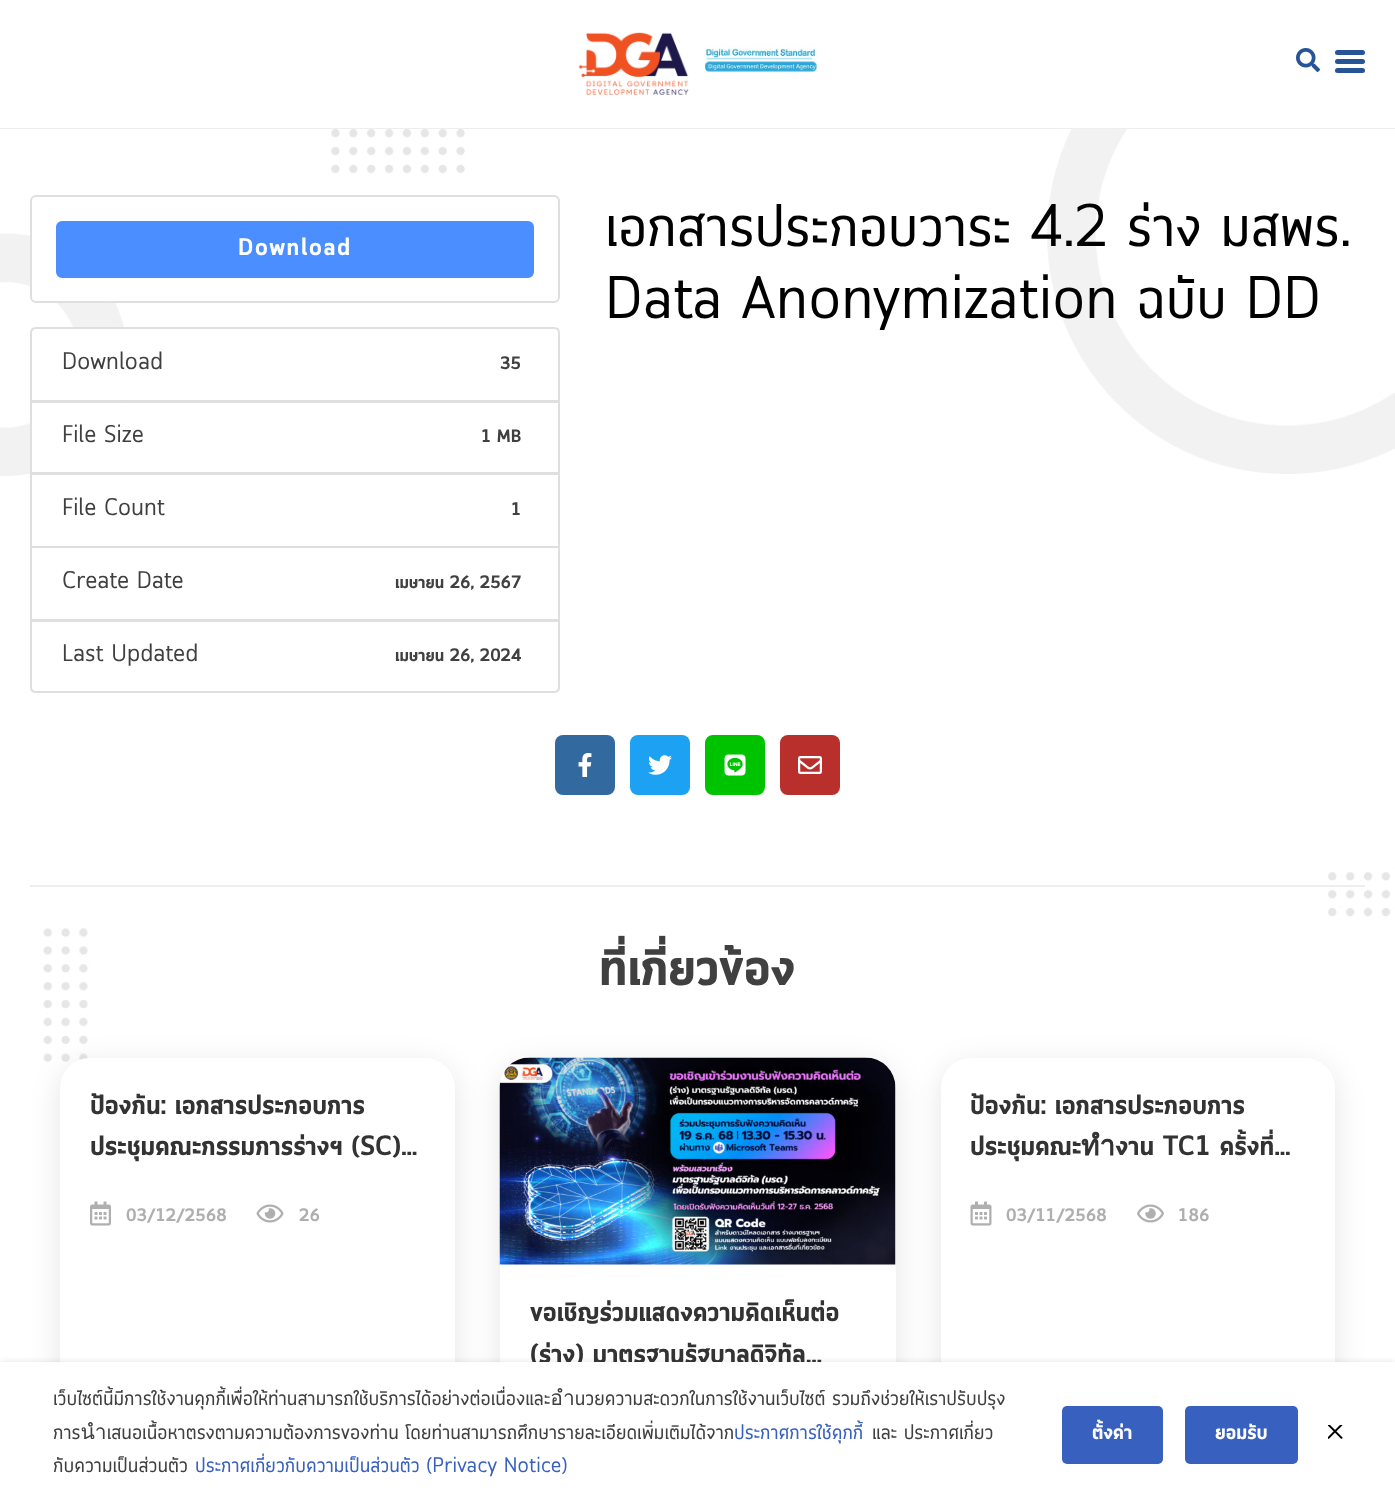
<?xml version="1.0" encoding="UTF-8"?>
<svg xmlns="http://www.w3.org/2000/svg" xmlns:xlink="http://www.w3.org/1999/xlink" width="1395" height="1507">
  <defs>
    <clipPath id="clip1"><rect x="90" y="1088" width="335" height="82" /></clipPath>
    <clipPath id="clip2"><rect x="971" y="1088" width="334" height="82" /></clipPath>
  </defs>
  <rect width="100%" height="100%" fill="#ffffff" />
  <rect y="128" width="1395" height="1" fill="#eeeeee" />
  <image x="578" y="32" width="111" height="63" xlink:href="image1.png" />
  <image x="705" y="45" width="113" height="29" xlink:href="image2.png" />
  <image x="1296" y="48" width="24" height="24" xlink:href="image3.png" />
  <rect x="1335" y="59" width="30" height="5" rx="2.5" fill="#275497" />
  <rect x="1335" y="50" width="30" height="5" rx="2.5" fill="#275497" />
  <rect x="1335" y="68" width="30" height="5" rx="2.5" fill="#275497" />
  <image x="0" y="129" width="1395" height="933" xlink:href="image4.png" />
  <rect x="30" y="885" width="1335" height="2" fill="#eeeeee" />
  <rect x="31" y="196" width="528" height="106" rx="5" fill="#ffffff" stroke="#dfdfdf" stroke-width="2" />
  <rect x="57" y="222" width="476" height="55" rx="5" fill="#4a8eff" stroke="#4a8eff" stroke-width="2" />
  <path d="M 36 328 h 518 c 3 0 5 2 5 5 v 68 h -528 v -68 c 0 -3 2 -5 5 -5 z" fill="#ffffff" stroke="#dfdfdf" stroke-width="2" />
  <rect x="32" y="403" width="85" height="69" fill="#ffffff" />
  <rect x="31" y="402" width="528" height="71" fill="none" stroke="#dfdfdf" stroke-width="2" />
  <rect x="31" y="474" width="528" height="73" fill="none" stroke="#dfdfdf" stroke-width="2" />
  <rect x="31" y="547" width="528" height="73" fill="none" stroke="#dfdfdf" stroke-width="2" />
  <path d="M 31 621 h 528 v 66 c 0 3 -2 5 -5 5 h -518 c -3 0 -5 -2 -5 -5 z" fill="#ffffff" stroke="#dfdfdf" stroke-width="2" />
  <rect x="555" y="735" width="60" height="60" rx="8" fill="#326a9f" />
  <image x="578" y="753" width="14" height="24" xlink:href="image5.png" />
  <rect x="630" y="735" width="60" height="60" rx="8" fill="#1da1f2" />
  <image x="648" y="755" width="24" height="20" xlink:href="image6.png" />
  <rect x="705" y="735" width="60" height="60" rx="8" fill="#00c300" />
  <image x="724" y="754" width="22" height="22" xlink:href="image7.png" />
  <rect x="780" y="735" width="60" height="60" rx="8" fill="#b92f2c" />
  <image x="798" y="756" width="24" height="18" xlink:href="image8.png" />
  <rect x="60" y="1065" width="395" height="416" rx="30" fill="#000000" fill-opacity="0.1" filter="blur(15px)" />
  <rect x="60" y="1058" width="395" height="415" rx="30" fill="#ffffff" />
  <image x="90" y="1201" width="21" height="25" xlink:href="image9.png" />
  <image x="256" y="1204" width="28" height="19" xlink:href="image10.png" />
  <rect x="500" y="1065" width="396" height="416" rx="30" fill="#000000" fill-opacity="0.1" filter="blur(15px)" />
  <rect x="500" y="1058" width="396" height="415" rx="30" fill="#ffffff" />
  <image x="499" y="1057" width="397" height="208" xlink:href="image13.png" />
  <rect x="941" y="1065" width="394" height="416" rx="30" fill="#000000" fill-opacity="0.1" filter="blur(15px)" />
  <rect x="941" y="1058" width="394" height="415" rx="30" fill="#ffffff" />
  <image x="970" y="1201" width="22" height="25" xlink:href="image11.png" />
  <image x="1137" y="1204" width="27" height="19" xlink:href="image12.png" />
  <rect y="1365" width="1395" height="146" fill="#000000" fill-opacity="0.25" filter="blur(4px)" />
  <text x="238" y="255" style="font-family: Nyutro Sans; font-size: 24px; font-weight: bold; letter-spacing: 1.5px; fill: #ffffff">Download</text>
  <text x="62" y="369" style="font-family: Nyutro Sans; font-size: 24px; fill: #404040">Download</text>
  <text x="500" y="369" style="font-family: Nyutro Sans; font-size: 18px; font-weight: bold; fill: #404040">35</text>
  <text x="62" y="442" style="font-family: Nyutro Sans; font-size: 24px; fill: #404040">File Size</text>
  <text x="481" y="442" style="font-family: Nyutro Sans; font-size: 18px; font-weight: bold; fill: #404040">1 MB</text>
  <text x="62" y="515" style="font-family: Nyutro Sans; font-size: 24px; fill: #404040">File Count</text>
  <text x="511" y="515" style="font-family: Nyutro Sans; font-size: 18px; font-weight: bold; fill: #404040">1</text>
  <text x="62" y="588" style="font-family: Nyutro Sans; font-size: 24px; fill: #404040">Create Date</text>
  <text x="395" y="588" style="font-family: Nyutro Sans; font-size: 18px; font-weight: bold; fill: #404040">เมษายน 26, 2567</text>
  <text x="62" y="661" style="font-family: Nyutro Sans; font-size: 24px; fill: #404040">Last Updated</text>
  <text x="395" y="661" style="font-family: Nyutro Sans; font-size: 18px; font-weight: bold; fill: #404040">เมษายน 26, 2024</text>
  <text x="605" y="246" style="font-family: Nyutro Sans; font-size: 60px; fill: #000000">เอกสารประกอบวาระ 4.2 ร่าง มสพร.</text>
  <text x="605" y="318" style="font-family: Nyutro Sans; font-size: 60px; fill: #000000">Data Anonymization ฉบับ DD</text>
  <text x="599" y="985" style="font-family: Nyutro Sans; font-size: 54px; font-weight: bold; fill: #404040">ที่เกี่ยวข้อง</text>
  <g clip-path="url(#clip1)">
    <text x="90" y="1114" style="font-family: Nyutro Sans; font-size: 28px; font-weight: bold; fill: #333333">ป้องกัน: เอกสารประกอบการ</text>
  </g>
  <text x="90" y="1155" style="font-family: Nyutro Sans; font-size: 28px; font-weight: bold; fill: #333333">ประชุมคณะกรรมการร่างฯ (SC)…</text>
  <text x="126" y="1221" style="font-family: Nyutro Sans; font-size: 18px; font-weight: bold; fill: #afafaf">03/12/2568</text>
  <text x="299" y="1221" style="font-family: Nyutro Sans; font-size: 18px; font-weight: bold; fill: #afafaf">26</text>
  <g clip-path="url(#clip2)">
    <text x="970" y="1114" style="font-family: Nyutro Sans; font-size: 28px; font-weight: bold; fill: #333333">ป้องกัน: เอกสารประกอบการ</text>
  </g>
  <text x="970" y="1155" style="font-family: Nyutro Sans; font-size: 28px; font-weight: bold; fill: #333333">ประชุมคณะทำงาน TC1 ครั้งที่…</text>
  <text x="1006" y="1221" style="font-family: Nyutro Sans; font-size: 18px; font-weight: bold; fill: #afafaf">03/11/2568</text>
  <text x="1178" y="1221" style="font-family: Nyutro Sans; font-size: 18px; font-weight: bold; fill: #afafaf">186</text>
  <text x="530" y="1321" style="font-family: Nyutro Sans; font-size: 28px; font-weight: bold; fill: #333333">ขอเชิญร่วมแสดงความคิดเห็นต่อ</text>
  <text x="530" y="1363" style="font-family: Nyutro Sans; font-size: 28px; font-weight: bold; fill: #333333">(ร่าง) มาตรฐานรัฐบาลดิจิทัล…</text>
  <rect y="1362" width="1395" height="145" fill="#ffffff" />
  <text x="53" y="1405" style="font-family: Nyutro Sans; font-size: 21px; fill: #404040">เว็บไซต์นี้มีการใช้งานคุกกี้เพื่อให้ท่านสามารถใช้บริการได้อย่างต่อเนื่องและอำนวยความสะดวกในการใช้งานเว็บไซต์ รวมถึงช่วยให้เราปรับปรุง</text>
  <text x="53" y="1439" style="font-family: Nyutro Sans; font-size: 21px; fill: #404040">การนำเสนอเนื้อหาตรงตามความต้องการของท่าน โดยท่านสามารถศึกษารายละเอียดเพิ่มเติมได้จาก</text>
  <text x="734" y="1439" style="font-family: Nyutro Sans; font-size: 21px; fill: #3860be">ประกาศการใช้คุกกี้</text>
  <text x="872" y="1439" style="font-family: Nyutro Sans; font-size: 21px; fill: #404040">และ ประกาศเกี่ยว</text>
  <text x="53" y="1472" style="font-family: Nyutro Sans; font-size: 21px; fill: #404040">กับความเป็นส่วนตัว</text>
  <text x="195" y="1472" style="font-family: Nyutro Sans; font-size: 21px; fill: #3860be">ประกาศเกี่ยวกับความเป็นส่วนตัว (Privacy Notice)</text>
  <rect x="1062" y="1406" width="101" height="58" rx="5" fill="#3860be" />
  <text x="1092" y="1439" style="font-family: Nyutro Sans; font-size: 21px; font-weight: bold; fill: #ffffff">ตั้งค่า</text>
  <rect x="1185" y="1406" width="113" height="58" rx="5" fill="#3860be" />
  <text x="1215" y="1439" style="font-family: Nyutro Sans; font-size: 21px; font-weight: bold; fill: #ffffff">ยอมรับ</text>
  <image x="1328" y="1425" width="15" height="14" xlink:href="image14.png" />
</svg>
